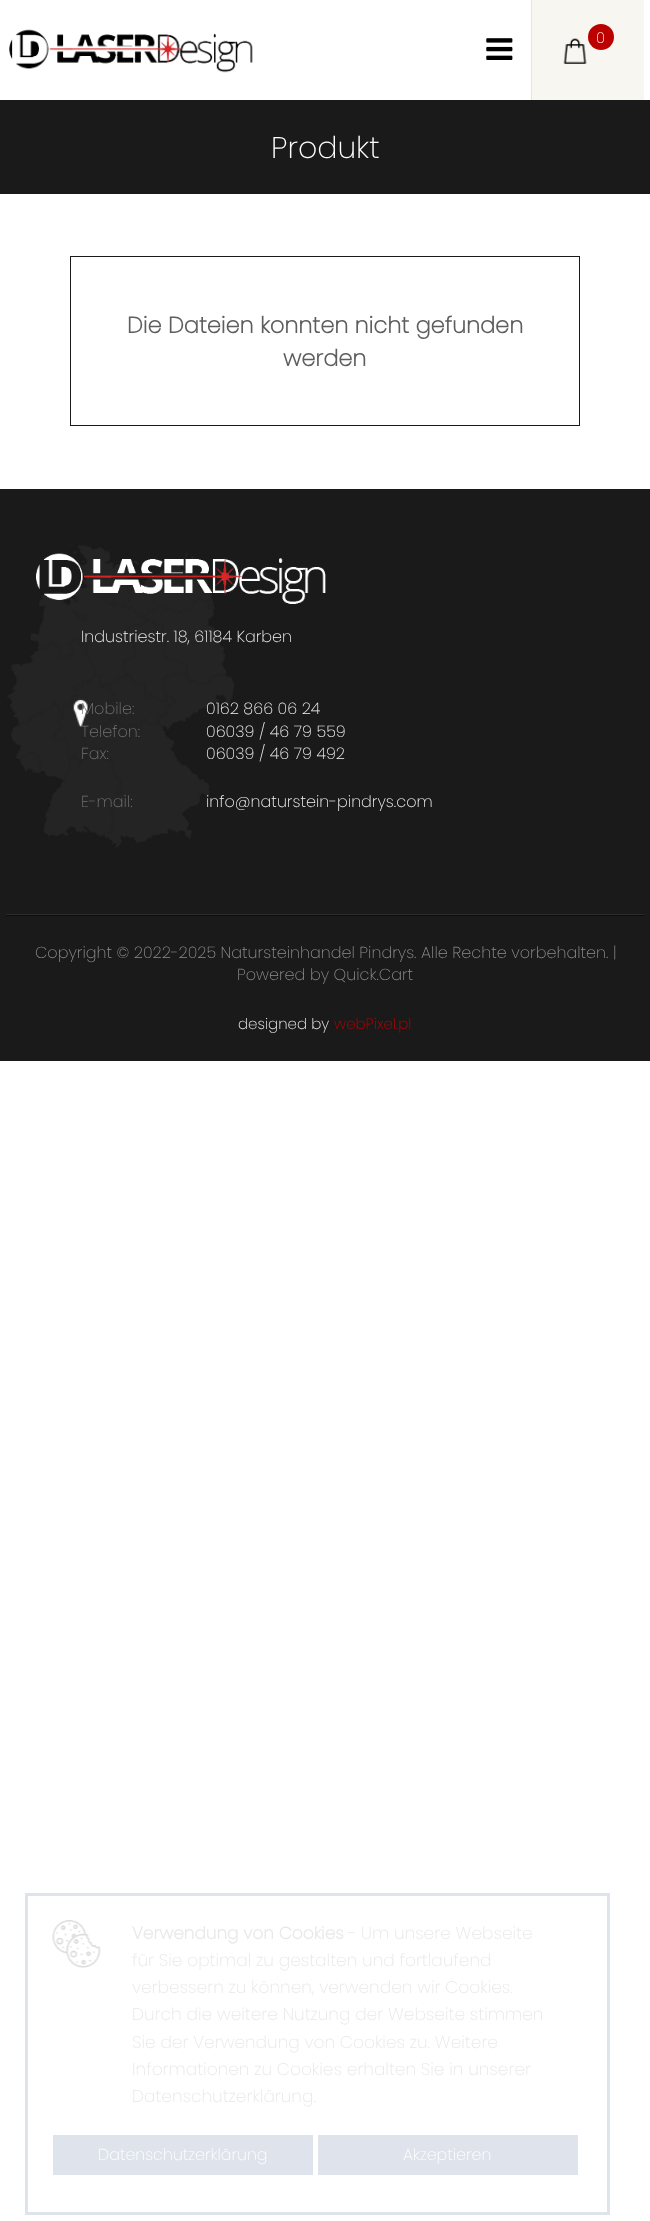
<?xml version="1.0" encoding="UTF-8"?>
<svg xmlns="http://www.w3.org/2000/svg" xmlns:xlink="http://www.w3.org/1999/xlink" width="650" height="2221">
  <rect width="100%" height="100%" fill="#ffffff" />
  <image x="9" y="29" width="244" height="44" xlink:href="image1.png" />
  <image x="486" y="38" width="27" height="22" xlink:href="image2.png" />
  <rect x="532" width="112" height="100" fill="#f7f6f1" />
  <rect x="531" width="1" height="100" fill="#e7e6dd" />
  <image x="563" y="38" width="24" height="26" xlink:href="image3.png" />
  <circle cx="601" cy="37" r="13" fill="#bc0000" />
  <rect y="100" width="650" height="94" fill="#1a1a1a" />
  <rect x="70.5" y="256.5" width="509" height="169" fill="none" stroke="#1a1a1a" />
  <rect y="489" width="650" height="572" fill="#1a1a1a" />
  <rect x="6" y="914" width="638" height="1" fill="#2c2c2c" />
  <image x="7" y="545" width="228" height="303" xlink:href="image4.png" />
  <image x="36" y="553" width="290" height="51" xlink:href="image5.png" />
  <rect x="6" y="915" width="638" height="1" fill="#0c0c0c" />
  <rect x="26.5" y="1894.5" width="582" height="319" fill="none" stroke="#dfe4ec" stroke-width="3" />
  <image x="52" y="1920" width="49" height="48" xlink:href="image6.png" />
  <rect x="53" y="2135" width="260" height="40" fill="#dfe4ec" />
  <rect x="318" y="2135" width="260" height="40" fill="#dfe4ec" />
  <text x="596" y="43" style="font-family: Poppins; font-size: 15px; font-weight: 200; fill: #ffffff">0</text>
  <text x="271" y="158" style="font-family: Poppins; font-size: 30px; font-weight: 200; fill: #ffffff">Produkt</text>
  <text x="127" y="333" style="font-family: Poppins; font-size: 22.5px; font-weight: bold; fill: #5e5e5e">Die Dateien konnten nicht gefunden</text>
  <text x="283" y="366" style="font-family: Poppins; font-size: 22.5px; font-weight: bold; fill: #5e5e5e">werden</text>
  <text x="81" y="642" style="font-family: Poppins; font-size: 16px; font-weight: 200; fill: #f3f3f3">Industriestr. 18, 61184 Karben</text>
  <text x="81" y="714" style="font-family: Poppins; font-size: 16px; font-weight: 200; fill: #727272">Mobile:</text>
  <text x="206" y="714" style="font-family: Poppins; font-size: 16px; font-weight: 200; fill: #f3f3f3">0162 866 06 24</text>
  <text x="81" y="737" style="font-family: Poppins; font-size: 16px; font-weight: 200; fill: #727272">Telefon:</text>
  <text x="206" y="737" style="font-family: Poppins; font-size: 16px; font-weight: 200; fill: #f3f3f3">06039 / 46 79 559</text>
  <text x="81" y="759" style="font-family: Poppins; font-size: 16px; font-weight: 200; fill: #727272">Fax:</text>
  <text x="206" y="759" style="font-family: Poppins; font-size: 16px; font-weight: 200; fill: #f3f3f3">06039 / 46 79 492</text>
  <text x="81" y="807" style="font-family: Poppins; font-size: 16px; font-weight: 200; fill: #727272">E-mail:</text>
  <text x="206" y="807" style="font-family: Poppins; font-size: 16px; font-weight: 200; fill: #f3f3f3">info@naturstein-pindrys.com</text>
  <text x="35" y="958" style="font-family: Poppins; font-size: 16px; font-weight: 200; fill: #8e8e8e">Copyright © 2022-2025 Natursteinhandel Pindrys. Alle Rechte vorbehalten. |</text>
  <text x="237" y="980" style="font-family: Poppins; font-size: 16px; font-weight: 200; fill: #8e8e8e">Powered by Quick.Cart</text>
  <text x="238" y="1029" style="font-family: Poppins; font-size: 15px; font-weight: 200; fill: #f3f3f3">designed by</text>
  <text x="334" y="1029" style="font-family: Poppins; font-size: 15px; font-weight: 200; fill: #bc0000">webPixel.pl</text>
  <text x="132" y="1939" style="font-family: Poppins; font-size: 17px; font-weight: bold; fill: #e8e8e8">Verwendung von Cookies</text>
  <text x="348" y="1939" style="font-family: Poppins; font-size: 17px; font-weight: 200; fill: #e8e8e8">- Um unsere Webseite</text>
  <text x="132" y="1966" style="font-family: Poppins; font-size: 17px; font-weight: 200; fill: #e8e8e8">für Sie optimal zu gestalten und fortlaufend</text>
  <text x="132" y="1993" style="font-family: Poppins; font-size: 17px; font-weight: 200; fill: #e8e8e8">verbessern zu können, verwenden wir Cookies.</text>
  <text x="132" y="2020" style="font-family: Poppins; font-size: 17px; font-weight: 200; fill: #e8e8e8">Durch die weitere Nutzung der Webseite stimmen</text>
  <text x="132" y="2048" style="font-family: Poppins; font-size: 17px; font-weight: 200; fill: #e8e8e8">Sie der Verwendung von Cookies zu. Weitere</text>
  <text x="132" y="2075" style="font-family: Poppins; font-size: 17px; font-weight: 200; fill: #e8e8e8">Informationen zu Cookies erhalten Sie in unserer</text>
  <text x="132" y="2102" style="font-family: Poppins; font-size: 17px; font-weight: 200; fill: #e8e8e8">Datenschutzerklärung.</text>
  <text x="98" y="2160" style="font-family: Poppins; font-size: 15.9px; font-weight: 200; fill: #ffffff">Datenschutzerklärung</text>
  <text x="403" y="2160" style="font-family: Poppins; font-size: 15.9px; font-weight: 200; fill: #ffffff">Akzeptieren</text>
</svg>
